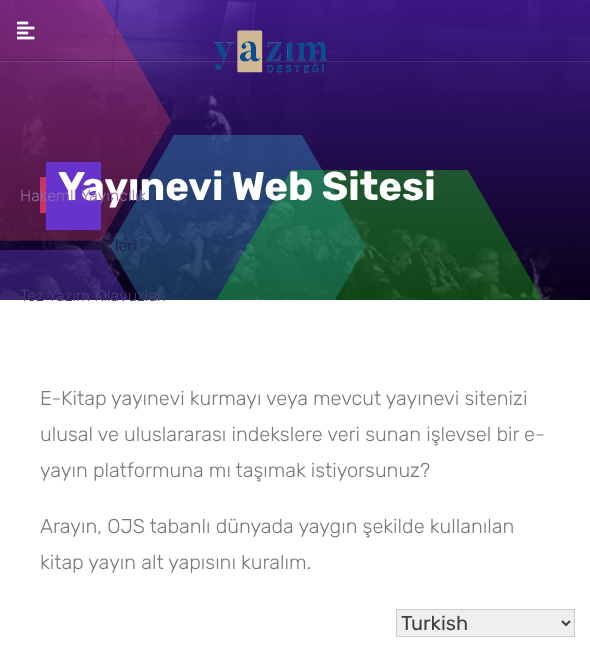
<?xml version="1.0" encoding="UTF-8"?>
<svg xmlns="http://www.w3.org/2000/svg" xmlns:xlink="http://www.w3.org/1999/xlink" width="590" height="653">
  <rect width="100%" height="100%" fill="#ffffff" />
  <image x="0" y="0" width="590" height="300" xlink:href="image1.png" />
  <image x="0" y="0" width="543" height="300" xlink:href="image2.png" />
  <rect x="46" y="162" width="55" height="68" fill="#6633cc" />
  <rect x="40" y="177" width="6" height="36" fill="#cc3366" />
  <rect y="61" width="590" height="1" fill="#ffffff" fill-opacity="0.1" />
  <rect y="60" width="590" height="1" fill="#000000" fill-opacity="0.2" />
  <image x="213" y="30" width="114" height="43" xlink:href="image3.png" />
  <image x="17" y="21" width="18" height="19" xlink:href="image4.png" />
  <rect x="396.5" y="609.5" width="178" height="27" fill="#efefef" stroke="#cccccc" />
  <path d="M 562 621 l 4 4 l 4 -4" fill="none" stroke="#404040" stroke-width="2" />
  <text x="58" y="200" style="font-family: Rubik; font-size: 40px; font-weight: bold; fill: #ffffff">Yayınevi Web Sitesi</text>
  <text x="20" y="201" style="font-family: Rubik; font-size: 16px; font-weight: 300; fill: #926ba7">Hakemli Yayıncılık</text>
  <text x="115" y="251" style="font-family: Rubik; font-size: 16px; font-weight: 300; fill: #221c47">leri</text>
  <text x="20" y="301" style="font-family: Rubik; font-size: 16px; font-weight: 300; fill: #484074">Tez Yazım Kılavuzları</text>
  <text x="40" y="405" style="font-family: Rubik; font-size: 20px; font-weight: 300; fill: #797979">E-Kitap yayınevi kurmayı veya mevcut yayınevi sitenizi</text>
  <text x="40" y="441" style="font-family: Rubik; font-size: 20px; font-weight: 300; fill: #797979">ulusal ve uluslararası indekslere veri sunan işlevsel bir e-</text>
  <text x="40" y="477" style="font-family: Rubik; font-size: 20px; font-weight: 300; fill: #797979">yayın platformuna mı taşımak istiyorsunuz?</text>
  <text x="40" y="533" style="font-family: Rubik; font-size: 20px; font-weight: 300; fill: #797979">Arayın, OJS tabanlı dünyada yaygın şekilde kullanılan</text>
  <text x="40" y="569" style="font-family: Rubik; font-size: 20px; font-weight: 300; fill: #797979">kitap yayın alt yapısını kuralım.</text>
  <text x="401" y="630" style="font-family: Rubik; font-size: 20px; fill: #404040">Turkish</text>
</svg>
